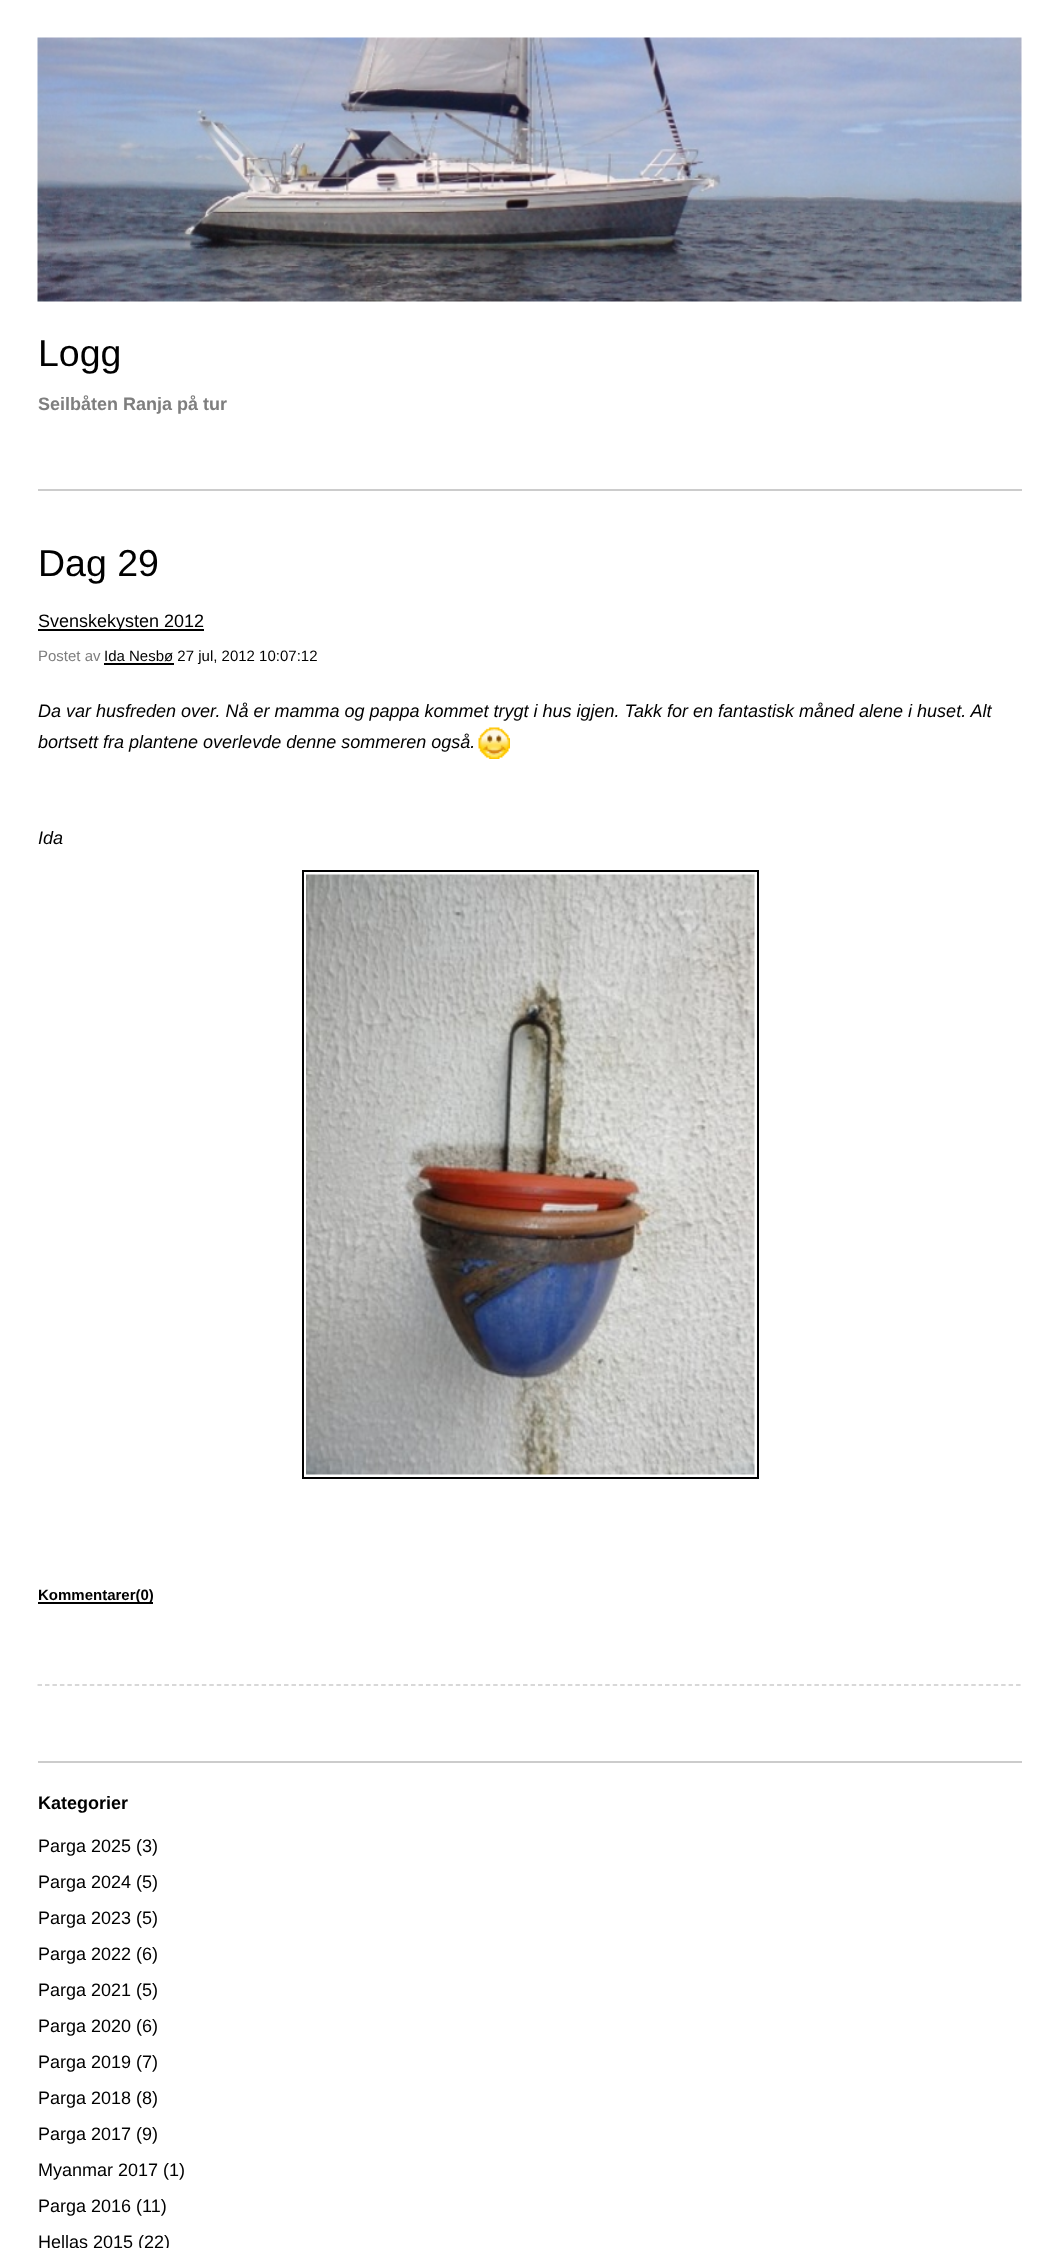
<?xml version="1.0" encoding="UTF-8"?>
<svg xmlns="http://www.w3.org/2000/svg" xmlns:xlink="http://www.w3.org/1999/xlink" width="1058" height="2248">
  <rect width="100%" height="100%" fill="#ffffff" />
  <image x="37" y="37" width="985" height="265" xlink:href="image1.png" />
  <rect x="38" y="489" width="984" height="2" fill="#cccccc" />
  <path d="M 37.5 1685 h 984" fill="none" stroke="#cccccc" stroke-width="1.5" stroke-dasharray="4.5 2.97" />
  <rect x="38" y="629" width="166" height="2" fill="#000000" />
  <rect x="104" y="663" width="70" height="2" fill="#000000" />
  <image x="478" y="727" width="32" height="32" xlink:href="image2.png" />
  <rect x="303" y="871" width="455" height="607" fill="none" stroke="#000000" stroke-width="2" />
  <image x="306" y="874" width="449" height="601" xlink:href="image3.png" />
  <rect x="38" y="1602" width="115" height="2" fill="#000000" />
  <rect x="38" y="1761" width="984" height="2" fill="#cccccc" />
  <text x="38" y="366" style="font-family: Liberation Sans; font-size: 37.5px; fill: #000000">Logg</text>
  <text x="38" y="410" style="font-family: Liberation Sans; font-size: 18px; font-weight: bold; fill: #7e7e7e">Seilbåten Ranja på tur</text>
  <text x="38" y="576" style="font-family: Liberation Sans; font-size: 37.5px; fill: #000000">Dag 29</text>
  <text x="38" y="627" style="font-family: Liberation Sans; font-size: 18px; fill: #000000">Svenskekysten 2012</text>
  <text x="38" y="661" style="font-family: Liberation Sans; font-size: 15px; fill: #7e7e7e">Postet av</text>
  <text x="104" y="661" style="font-family: Liberation Sans; font-size: 15px; fill: #000000">Ida Nesbø 27 jul, 2012 10:07:12</text>
  <text x="38" y="717" style="font-family: Liberation Sans; font-size: 18px; font-style: italic; fill: #000000">Da var husfreden over. Nå er mamma og pappa kommet trygt i hus igjen. Takk for en fantastisk måned alene i huset. Alt</text>
  <text x="38" y="748" style="font-family: Liberation Sans; font-size: 18px; font-style: italic; fill: #000000">bortsett fra plantene overlevde denne sommeren også.</text>
  <text x="38" y="844" style="font-family: Liberation Sans; font-size: 18px; font-style: italic; fill: #000000">Ida</text>
  <text x="38" y="1600" style="font-family: Liberation Sans; font-size: 15px; font-weight: bold; fill: #000000">Kommentarer(0)</text>
  <text x="38" y="1809" style="font-family: Liberation Sans; font-size: 18px; font-weight: bold; fill: #000000">Kategorier</text>
  <text x="38" y="1852" style="font-family: Liberation Sans; font-size: 18px; fill: #000000">Parga 2025 (3)</text>
  <text x="38" y="1888" style="font-family: Liberation Sans; font-size: 18px; fill: #000000">Parga 2024 (5)</text>
  <text x="38" y="1924" style="font-family: Liberation Sans; font-size: 18px; fill: #000000">Parga 2023 (5)</text>
  <text x="38" y="1960" style="font-family: Liberation Sans; font-size: 18px; fill: #000000">Parga 2022 (6)</text>
  <text x="38" y="1996" style="font-family: Liberation Sans; font-size: 18px; fill: #000000">Parga 2021 (5)</text>
  <text x="38" y="2032" style="font-family: Liberation Sans; font-size: 18px; fill: #000000">Parga 2020 (6)</text>
  <text x="38" y="2068" style="font-family: Liberation Sans; font-size: 18px; fill: #000000">Parga 2019 (7)</text>
  <text x="38" y="2104" style="font-family: Liberation Sans; font-size: 18px; fill: #000000">Parga 2018 (8)</text>
  <text x="38" y="2140" style="font-family: Liberation Sans; font-size: 18px; fill: #000000">Parga 2017 (9)</text>
  <text x="38" y="2176" style="font-family: Liberation Sans; font-size: 18px; fill: #000000">Myanmar 2017 (1)</text>
  <text x="38" y="2212" style="font-family: Liberation Sans; font-size: 18px; fill: #000000">Parga 2016 (11)</text>
  <text x="38" y="2248" style="font-family: Liberation Sans; font-size: 18px; fill: #000000">Hellas 2015 (22)</text>
</svg>
